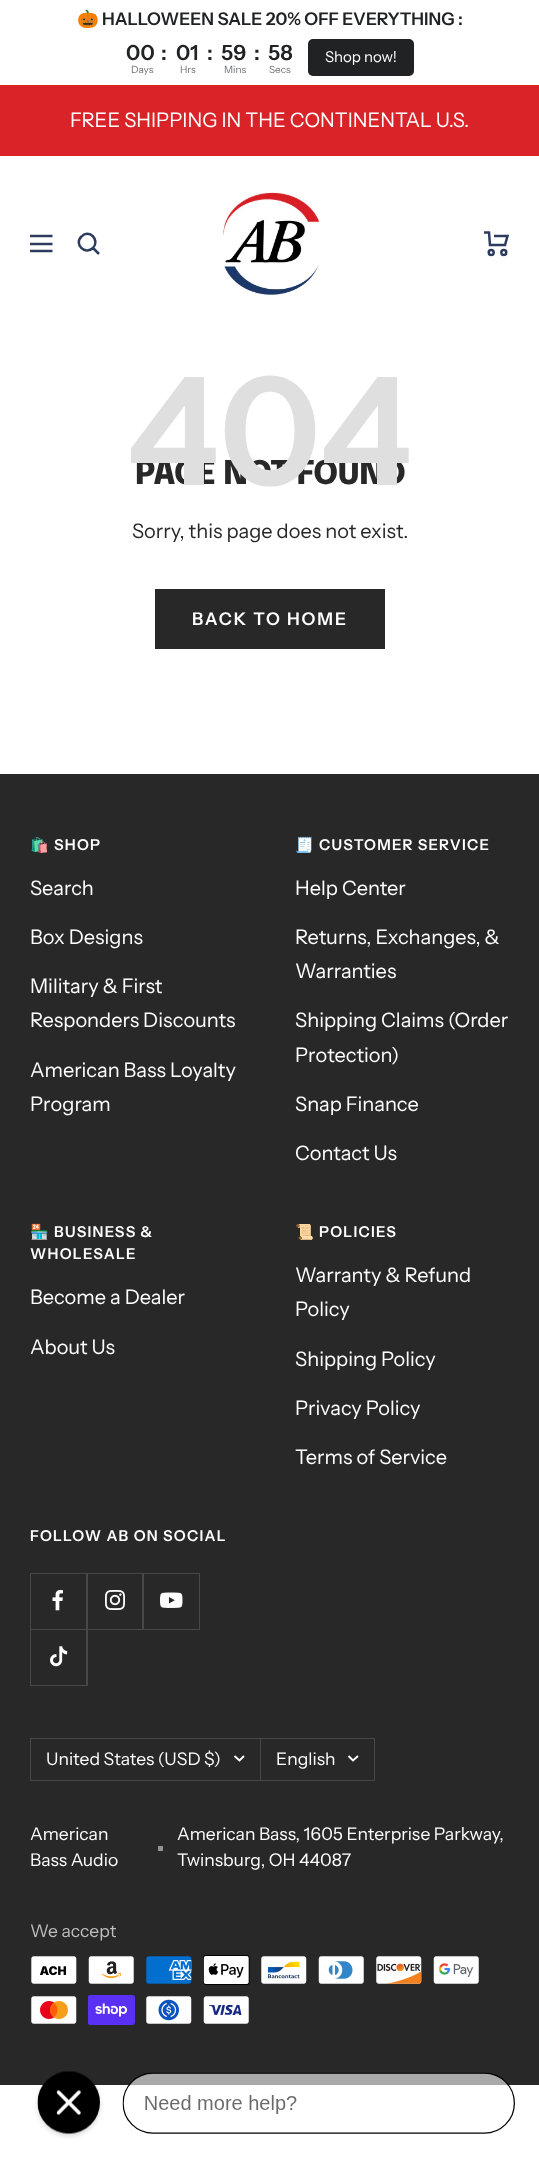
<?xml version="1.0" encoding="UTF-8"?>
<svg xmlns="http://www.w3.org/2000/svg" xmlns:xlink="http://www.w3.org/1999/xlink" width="539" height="2167">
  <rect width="100%" height="100%" fill="#ffffff" />
  <rect x="308" y="39" width="106" height="37" rx="5" fill="#202223" />
  <rect y="85" width="539" height="71" fill="#d92328" />
  <path d="M 30 236 h 22.5 m -22.5 15 h 22.5 z m 0 -7 h 22.5 z" fill="none" stroke="#2d3c5e" stroke-width="2.5" />
  <path d="M 93 248 c 7.5 -8 -4 -19.5 -11.5 -11.5 c -8 7.5 3.5 19 11.5 11.5 z m 0 0 l 6 6" fill="none" stroke="#2d3c5e" stroke-width="2.5" />
  <image x="222" y="191" width="98" height="106" xlink:href="image1.png" />
  <path d="M 484 232.5 h 5 l 1 12.5 h 15 l 2.5 -9 h -13.5" fill="none" stroke="#2d3c5e" stroke-width="2.5" />
  <circle cx="491.2" cy="252.5" r="2.5" fill="none" stroke="#2d3c5e" stroke-width="2.5" />
  <circle cx="503.8" cy="252.5" r="2.5" fill="none" stroke="#2d3c5e" stroke-width="2.5" />
  <rect x="155" y="589" width="230" height="60" fill="#282828" />
  <rect y="774" width="539" height="1311" fill="#282828" />
  <path d="M 31 1629 v 1 h 57 v -56 h -2 v 55 z" fill="#484848" />
  <rect x="30" y="1629" width="1" height="1" fill="#484848" />
  <path d="M 31 1629 h 57 v -56 h -2 v 56 z" fill="#484848" />
  <rect x="30" y="1573" width="56" height="1" fill="#484848" />
  <rect x="30" y="1573" width="1" height="56" fill="#484848" />
  <image x="52" y="1590" width="11" height="21" xlink:href="image2.png" />
  <path d="M 88 1629 v 1 h 56 v -56 h -2 v 55 z" fill="#484848" />
  <path d="M 88 1629 h 56 v -56 h -2 v 56 z" fill="#484848" />
  <rect x="86" y="1573" width="113" height="1" fill="#484848" />
  <image x="105" y="1590" width="20" height="20" xlink:href="image3.png" />
  <path d="M 144 1629 v 1 h 56 v -56 h -1 v 55 z" fill="#484848" />
  <path d="M 144 1629 h 56 v -56 h -1 v 56 z" fill="#484848" />
  <image x="160" y="1592" width="23" height="16" xlink:href="image4.png" />
  <path d="M 31 1685 v 1 h 57 v -56 h -2 v 55 z" fill="#484848" />
  <rect x="30" y="1629" width="1" height="57" fill="#484848" />
  <image x="50" y="1646" width="18" height="21" xlink:href="image5.png" />
  <rect x="30.5" y="1738.5" width="230" height="42" fill="none" stroke="#484848" />
  <path d="M 234.5 1756 l 5 4.5 l 4.5 -4.5" fill="none" stroke="#ffffff" stroke-width="1.9" />
  <rect x="260.5" y="1738.5" width="114" height="42" fill="none" stroke="#484848" />
  <path d="M 348.5 1756 l 4.5 4.5 l 5 -4.5" fill="none" stroke="#ffffff" stroke-width="1.9" />
  <rect x="158" y="1846" width="5" height="5" fill="#949494" />
  <image x="31" y="1956" width="46" height="28" xlink:href="image6.png" />
  <image x="88" y="1956" width="46" height="28" xlink:href="image7.png" />
  <image x="146" y="1956" width="46" height="28" xlink:href="image8.png" />
  <image x="203" y="1955" width="47" height="30" xlink:href="image9.png" />
  <image x="261" y="1956" width="46" height="28" xlink:href="image10.png" />
  <image x="318" y="1956" width="46" height="28" xlink:href="image11.png" />
  <image x="376" y="1956" width="46" height="28" xlink:href="image12.png" />
  <image x="433" y="1956" width="46" height="28" xlink:href="image13.png" />
  <image x="31" y="1996" width="46" height="28" xlink:href="image14.png" />
  <image x="88" y="1995" width="47" height="30" xlink:href="image15.png" />
  <image x="146" y="1996" width="46" height="28" xlink:href="image16.png" />
  <image x="203" y="1996" width="46" height="28" xlink:href="image17.png" />
  <image x="35" y="2071" width="480" height="68" xlink:href="image18.png" />
  <text x="77" y="25" style="font-family: Noto Color Emoji; font-size: 17.5px; font-weight: bold; fill: #202223">🎃</text>
  <text x="102" y="25" style="font-family: Instrument Sans; font-size: 17.5px; font-weight: 600; fill: #202223">HALLOWEEN SALE 20% OFF EVERYTHING :</text>
  <text x="126" y="60" style="font-family: Instrument Sans; font-size: 21px; font-weight: 600; fill: #202223">00</text>
  <text x="161" y="60" style="font-family: Instrument Sans; font-size: 21px; font-weight: 600; fill: #202223">:</text>
  <text x="176" y="60" style="font-family: Instrument Sans; font-size: 21px; font-weight: 600; fill: #202223">01</text>
  <text x="207" y="60" style="font-family: Instrument Sans; font-size: 21px; font-weight: 600; fill: #202223">:</text>
  <text x="221" y="60" style="font-family: Instrument Sans; font-size: 21px; font-weight: 600; fill: #202223">59</text>
  <text x="254" y="60" style="font-family: Instrument Sans; font-size: 21px; font-weight: 600; fill: #202223">:</text>
  <text x="268" y="60" style="font-family: Instrument Sans; font-size: 21px; font-weight: 600; fill: #202223">58</text>
  <text x="131" y="73" style="font-family: Instrument Sans; font-size: 10px; fill: #6d7175">Days</text>
  <text x="180" y="73" style="font-family: Instrument Sans; font-size: 10px; fill: #6d7175">Hrs</text>
  <text x="224" y="73" style="font-family: Instrument Sans; font-size: 10px; fill: #6d7175">Mins</text>
  <text x="269" y="73" style="font-family: Instrument Sans; font-size: 10px; fill: #6d7175">Secs</text>
  <text x="325" y="62" style="font-family: Instrument Sans; font-size: 15px; fill: #ffffff">Shop now!</text>
  <text x="70" y="127" style="font-family: Instrument Sans; font-size: 20px; fill: #ffffff">FREE SHIPPING IN THE CONTINENTAL U.S.</text>
  <text x="135" y="484" style="font-family: Epilogue; font-size: 32.5px; font-weight: 800; letter-spacing: -0.5px; fill: #282828">PAGE NOT FOUND</text>
  <text x="127" y="485" style="font-family: Instrument Sans; font-size: 150px; font-weight: 600; fill: #dfdfdf">404</text>
  <text x="132" y="538" style="font-family: Instrument Sans; font-size: 20px; fill: #282828">Sorry, this page does not exist.</text>
  <text x="192" y="625" style="font-family: Instrument Sans; font-size: 17.5px; font-weight: 600; letter-spacing: 1.9px; fill: #ffffff">BACK TO HOME</text>
  <text x="30" y="850" style="font-family: Noto Color Emoji; font-size: 15px; font-weight: bold; letter-spacing: 1.25px; fill: #ffffff">🛍️</text>
  <text x="54" y="850" style="font-family: Instrument Sans; font-size: 15px; font-weight: 600; letter-spacing: 1.25px; fill: #ffffff">SHOP</text>
  <text x="30" y="895" style="font-family: Instrument Sans; font-size: 20px; fill: #ffffff">Search</text>
  <text x="30" y="944" style="font-family: Instrument Sans; font-size: 20px; fill: #ffffff">Box Designs</text>
  <text x="30" y="993" style="font-family: Instrument Sans; font-size: 20px; fill: #ffffff">Military &amp; First</text>
  <text x="30" y="1027" style="font-family: Instrument Sans; font-size: 20px; fill: #ffffff">Responders Discounts</text>
  <text x="30" y="1077" style="font-family: Instrument Sans; font-size: 20px; fill: #ffffff">American Bass Loyalty</text>
  <text x="30" y="1111" style="font-family: Instrument Sans; font-size: 20px; fill: #ffffff">Program</text>
  <text x="295" y="850" style="font-family: Noto Color Emoji; font-size: 15px; font-weight: bold; letter-spacing: 1.25px; fill: #ffffff">🧾</text>
  <text x="319" y="850" style="font-family: Instrument Sans; font-size: 15px; font-weight: 600; letter-spacing: 1.25px; fill: #ffffff">CUSTOMER SERVICE</text>
  <text x="295" y="895" style="font-family: Instrument Sans; font-size: 20px; fill: #ffffff">Help Center</text>
  <text x="295" y="944" style="font-family: Instrument Sans; font-size: 20px; fill: #ffffff">Returns, Exchanges, &amp;</text>
  <text x="295" y="978" style="font-family: Instrument Sans; font-size: 20px; fill: #ffffff">Warranties</text>
  <text x="295" y="1027" style="font-family: Instrument Sans; font-size: 20px; fill: #ffffff">Shipping Claims (Order</text>
  <text x="295" y="1062" style="font-family: Instrument Sans; font-size: 20px; fill: #ffffff">Protection)</text>
  <text x="295" y="1111" style="font-family: Instrument Sans; font-size: 20px; fill: #ffffff">Snap Finance</text>
  <text x="295" y="1160" style="font-family: Instrument Sans; font-size: 20px; fill: #ffffff">Contact Us</text>
  <text x="30" y="1237" style="font-family: Noto Color Emoji; font-size: 15px; font-weight: bold; letter-spacing: 1.25px; fill: #ffffff">🏪</text>
  <text x="54" y="1237" style="font-family: Instrument Sans; font-size: 15px; font-weight: 600; letter-spacing: 1.25px; fill: #ffffff">BUSINESS &amp;</text>
  <text x="30" y="1259" style="font-family: Instrument Sans; font-size: 15px; font-weight: 600; letter-spacing: 1.25px; fill: #ffffff">WHOLESALE</text>
  <text x="30" y="1304" style="font-family: Instrument Sans; font-size: 20px; fill: #ffffff">Become a Dealer</text>
  <text x="30" y="1354" style="font-family: Instrument Sans; font-size: 20px; fill: #ffffff">About Us</text>
  <text x="295" y="1237" style="font-family: Noto Color Emoji; font-size: 15px; font-weight: bold; letter-spacing: 1.25px; fill: #ffffff">📜</text>
  <text x="319" y="1237" style="font-family: Instrument Sans; font-size: 15px; font-weight: 600; letter-spacing: 1.25px; fill: #ffffff">POLICIES</text>
  <text x="295" y="1282" style="font-family: Instrument Sans; font-size: 20px; fill: #ffffff">Warranty &amp; Refund</text>
  <text x="295" y="1316" style="font-family: Instrument Sans; font-size: 20px; fill: #ffffff">Policy</text>
  <text x="295" y="1366" style="font-family: Instrument Sans; font-size: 20px; fill: #ffffff">Shipping Policy</text>
  <text x="295" y="1415" style="font-family: Instrument Sans; font-size: 20px; fill: #ffffff">Privacy Policy</text>
  <text x="295" y="1464" style="font-family: Instrument Sans; font-size: 20px; fill: #ffffff">Terms of Service</text>
  <text x="30" y="1541" style="font-family: Instrument Sans; font-size: 15px; font-weight: 600; letter-spacing: 1.25px; fill: #ffffff">FOLLOW AB ON SOCIAL</text>
  <text x="46" y="1765" style="font-family: Instrument Sans; font-size: 17.5px; fill: #ffffff">United States (USD $)</text>
  <text x="276" y="1765" style="font-family: Instrument Sans; font-size: 17.5px; fill: #ffffff">English</text>
  <text x="30" y="1840" style="font-family: Instrument Sans; font-size: 17.5px; fill: #ffffff">American</text>
  <text x="177" y="1840" style="font-family: Instrument Sans; font-size: 17.5px; fill: #ffffff">American Bass, 1605 Enterprise Parkway,</text>
  <text x="30" y="1866" style="font-family: Instrument Sans; font-size: 17.5px; fill: #ffffff">Bass Audio</text>
  <text x="177" y="1866" style="font-family: Instrument Sans; font-size: 17.5px; fill: #ffffff">Twinsburg, OH 44087</text>
  <text x="30" y="1937" style="font-family: Instrument Sans; font-size: 17.5px; fill: #bfbfbf">We accept</text>
</svg>
